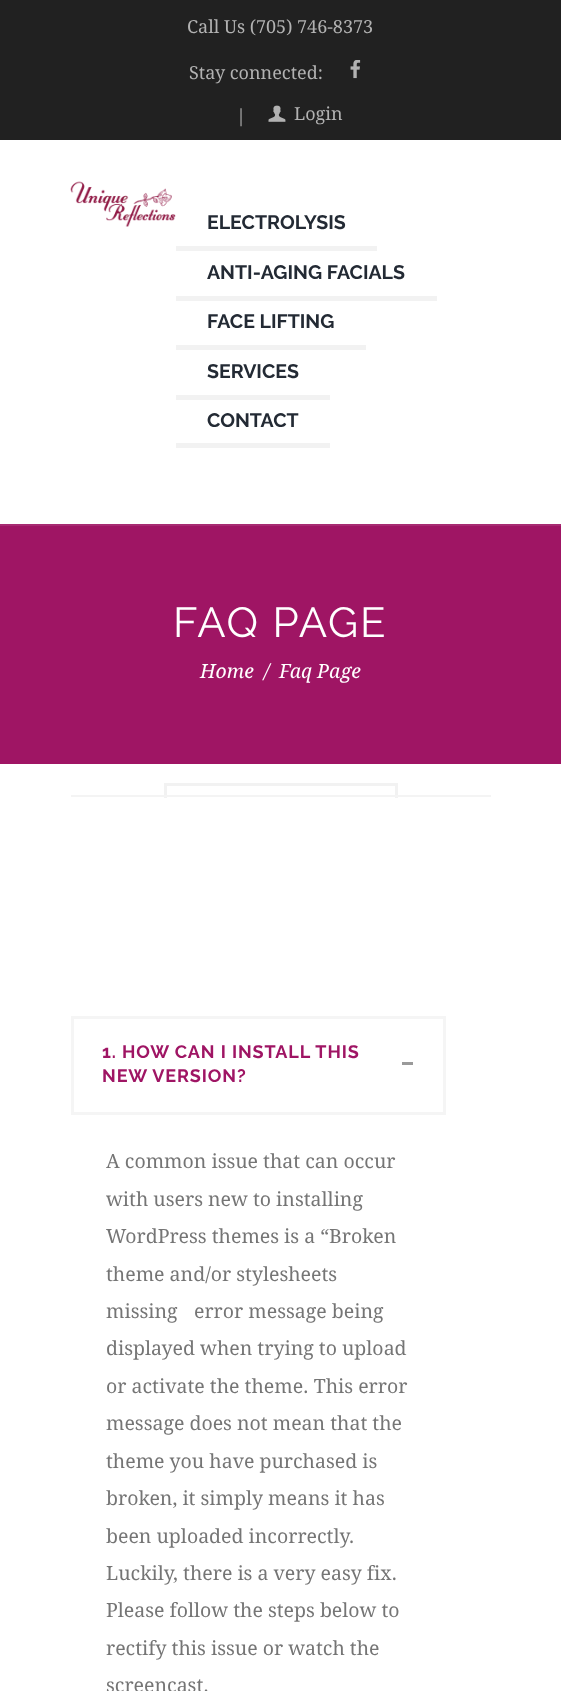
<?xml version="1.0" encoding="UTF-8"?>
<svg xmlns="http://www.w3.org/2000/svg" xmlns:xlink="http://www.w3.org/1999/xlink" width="561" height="1691">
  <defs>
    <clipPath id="clip1"><rect x="71" y="783" width="420" height="15" /></clipPath>
  </defs>
  <rect width="100%" height="100%" fill="#ffffff" />
  <rect width="561" height="140" fill="#212121" />
  <image x="350" y="60" width="11" height="19" xlink:href="image1.png" />
  <image x="268" y="105" width="18" height="17" xlink:href="image2.png" />
  <image x="70" y="181" width="106" height="46" xlink:href="image3.png" />
  <rect x="176" y="246" width="201" height="5" fill="#f2f2f2" />
  <rect x="176" y="296" width="261" height="5" fill="#f2f2f2" />
  <rect x="176" y="345" width="190" height="5" fill="#f2f2f2" />
  <rect x="176" y="395" width="154" height="5" fill="#f2f2f2" />
  <rect x="176" y="443" width="154" height="5" fill="#f2f2f2" />
  <rect y="526" width="561" height="238" fill="#9f1564" />
  <rect y="524" width="561" height="2" fill="#a72b72" />
  <g clip-path="url(#clip1)">
    <rect x="165.5" y="784.5" width="231" height="60" fill="none" stroke="#f2f2f2" stroke-width="3" />
  </g>
  <rect x="71" y="795" width="420" height="2" fill="#f4f4f4" />
  <rect x="72.5" y="1017.5" width="372" height="96" fill="none" stroke="#f5f5f5" stroke-width="3" />
  <rect x="402" y="1062" width="11" height="3" fill="#9a9a9a" />
  <text x="187" y="33" style="font-family: Droid Serif; font-size: 18px; fill: #b2b2b2">Call Us (705) 746-8373</text>
  <text x="189" y="79" style="font-family: Droid Serif; font-size: 18px; fill: #b2b2b2">Stay connected:</text>
  <text x="236" y="122" style="font-family: Droid Serif; font-size: 18px; fill: #b2b2b2">|</text>
  <text x="294" y="120" style="font-family: Droid Serif; font-size: 18px; fill: #b2b2b2">Login</text>
  <text x="207" y="229" style="font-family: Raleway; font-size: 19.5px; font-weight: bold; fill: #232a34">ELECTROLYSIS</text>
  <text x="207" y="279" style="font-family: Raleway; font-size: 19.5px; font-weight: bold; fill: #232a34">ANTI-AGING FACIALS</text>
  <text x="207" y="328" style="font-family: Raleway; font-size: 19.5px; font-weight: bold; fill: #232a34">FACE LIFTING</text>
  <text x="207" y="378" style="font-family: Raleway; font-size: 19.5px; font-weight: bold; fill: #232a34">SERVICES</text>
  <text x="207" y="427" style="font-family: Raleway; font-size: 19.5px; font-weight: bold; fill: #232a34">CONTACT</text>
  <text x="173" y="637" style="font-family: Raleway; font-size: 42px; letter-spacing: 2px; fill: #ffffff">FAQ PAGE</text>
  <text x="200" y="678" style="font-family: Droid Serif; font-size: 19.5px; font-style: italic; fill: #ffffff">Home</text>
  <text x="264" y="678" style="font-family: Droid Serif; font-size: 19.5px; font-style: italic; fill: #ffffff">/</text>
  <text x="279" y="678" style="font-family: Droid Serif; font-size: 19.5px; font-style: italic; fill: #ffffff">Faq Page</text>
  <text x="102" y="1058" style="font-family: Raleway; font-size: 18px; font-weight: bold; letter-spacing: 0.9px; fill: #9f1564">1. HOW CAN I INSTALL THIS</text>
  <text x="102" y="1082" style="font-family: Raleway; font-size: 18px; font-weight: bold; letter-spacing: 0.9px; fill: #9f1564">NEW VERSION?</text>
  <text x="106" y="1168" style="font-family: Droid Serif; font-size: 19.5px; fill: #757575">A common issue that can occur</text>
  <text x="106" y="1206" style="font-family: Droid Serif; font-size: 19.5px; fill: #757575">with users new to installing</text>
  <text x="106" y="1243" style="font-family: Droid Serif; font-size: 19.5px; fill: #757575">WordPress themes is a “Broken</text>
  <text x="106" y="1281" style="font-family: Droid Serif; font-size: 19.5px; fill: #757575">theme and/or stylesheets</text>
  <text x="106" y="1318" style="font-family: Droid Serif; font-size: 19.5px; fill: #757575">missing</text>
  <text x="194" y="1318" style="font-family: Droid Serif; font-size: 19.5px; fill: #757575">error message being</text>
  <text x="106" y="1355" style="font-family: Droid Serif; font-size: 19.5px; fill: #757575">displayed when trying to upload</text>
  <text x="106" y="1393" style="font-family: Droid Serif; font-size: 19.5px; fill: #757575">or activate the theme. This error</text>
  <text x="106" y="1430" style="font-family: Droid Serif; font-size: 19.5px; fill: #757575">message does not mean that the</text>
  <text x="106" y="1468" style="font-family: Droid Serif; font-size: 19.5px; fill: #757575">theme you have purchased is</text>
  <text x="106" y="1505" style="font-family: Droid Serif; font-size: 19.5px; fill: #757575">broken, it simply means it has</text>
  <text x="106" y="1543" style="font-family: Droid Serif; font-size: 19.5px; fill: #757575">been uploaded incorrectly.</text>
  <text x="106" y="1580" style="font-family: Droid Serif; font-size: 19.5px; fill: #757575">Luckily, there is a very easy fix.</text>
  <text x="106" y="1617" style="font-family: Droid Serif; font-size: 19.5px; fill: #757575">Please follow the steps below to</text>
  <text x="106" y="1655" style="font-family: Droid Serif; font-size: 19.5px; fill: #757575">rectify this issue or watch the</text>
  <text x="106" y="1692" style="font-family: Droid Serif; font-size: 19.5px; fill: #757575">screencast.</text>
</svg>
